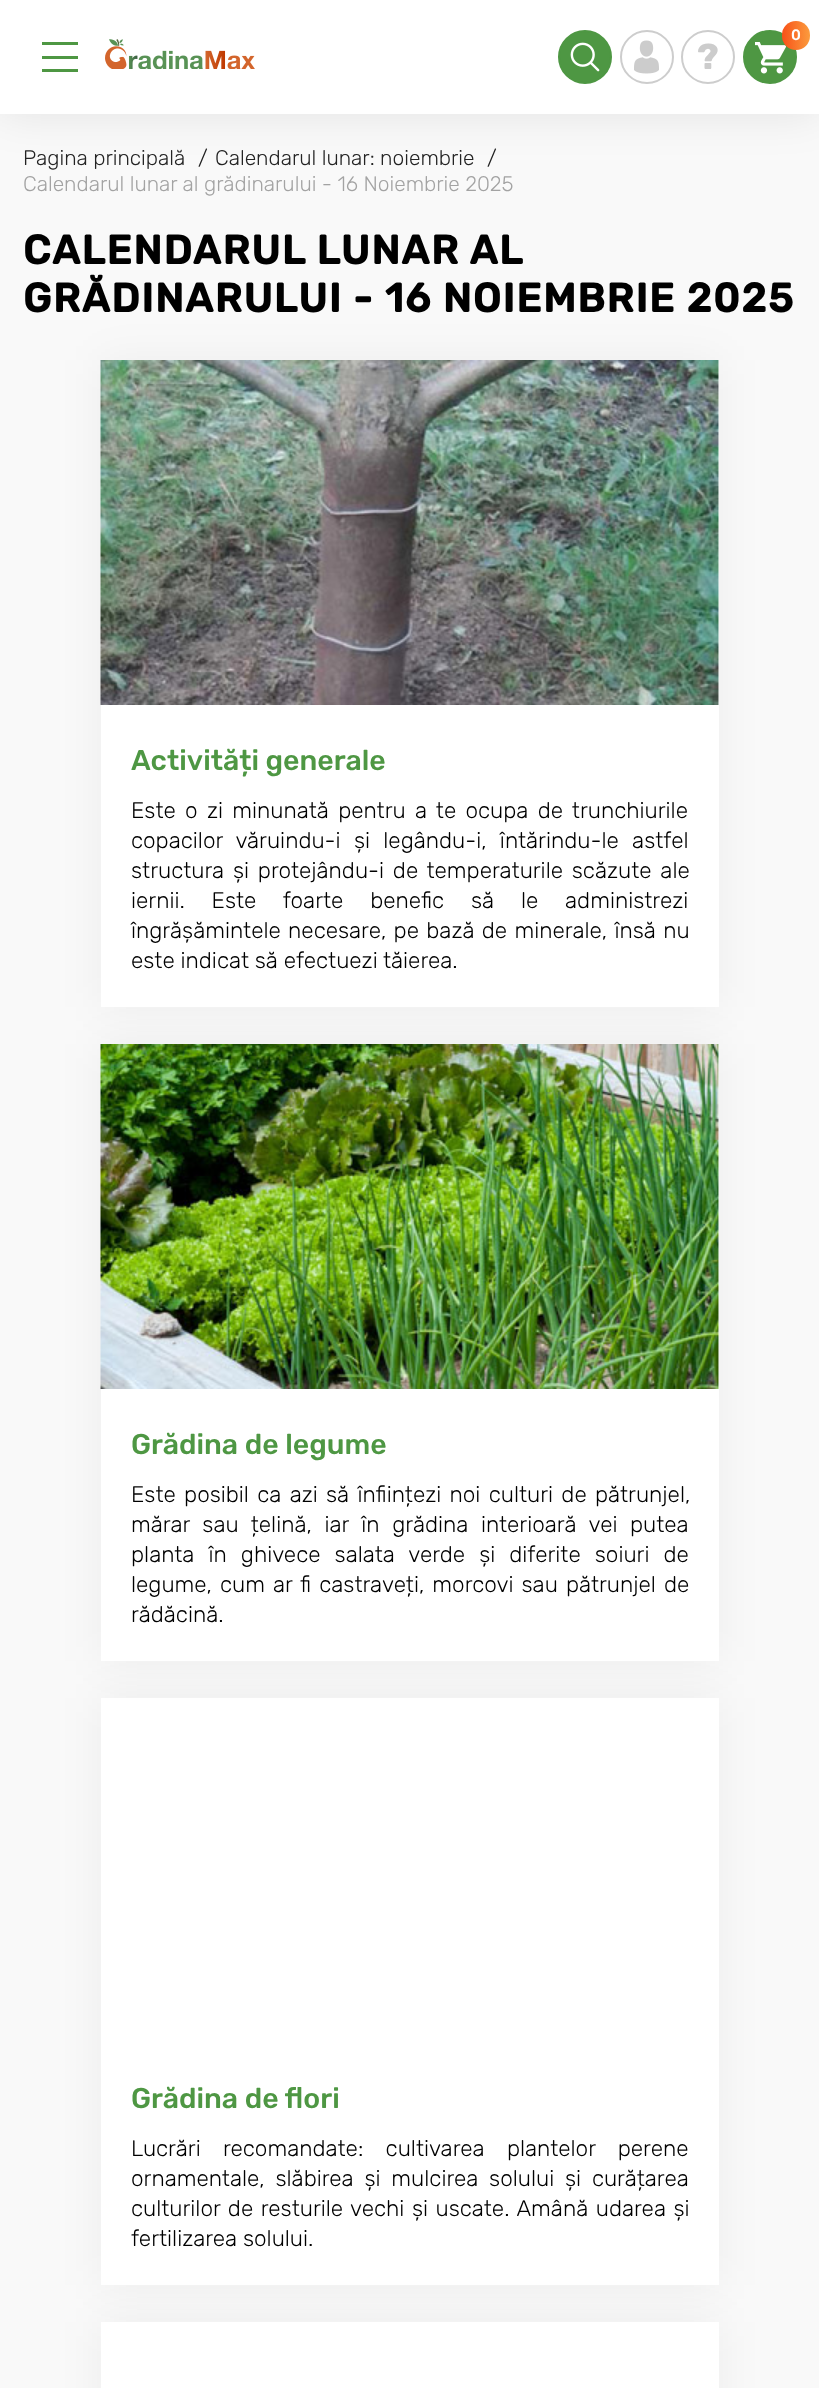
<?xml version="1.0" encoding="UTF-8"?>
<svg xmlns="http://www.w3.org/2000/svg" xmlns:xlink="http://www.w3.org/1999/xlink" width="819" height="2388">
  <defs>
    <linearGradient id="g1" gradientUnits="userSpaceOnUse" x1="782" y1="35" x2="810" y2="35"><stop offset="0" stop-color="#f85118" /><stop offset="1" stop-color="#fb9c3e" /></linearGradient>
  </defs>
  <rect width="100%" height="100%" fill="#f9f9f9" />
  <rect width="819" height="114" fill="#000000" fill-opacity="0.09" filter="blur(22px)" />
  <rect width="819" height="114" fill="#ffffff" />
  <rect x="42" y="42" width="36" height="3" fill="#4e9743" />
  <rect x="42" y="69" width="36" height="3" fill="#4e9743" />
  <rect x="42" y="56" width="36" height="3" fill="#4e9743" />
  <image x="105" y="39" width="150" height="30" xlink:href="image1.png" />
  <circle cx="585" cy="57" r="26" fill="#4e9743" stroke="#4e9743" stroke-width="2" />
  <image x="570" y="42" width="30" height="30" xlink:href="image2.png" />
  <circle cx="647" cy="57" r="26" fill="none" stroke="#cdcdcd" stroke-width="2" />
  <image x="634" y="40" width="25" height="34" xlink:href="image3.png" />
  <circle cx="708" cy="57" r="26" fill="none" stroke="#cdcdcd" stroke-width="2" />
  <circle cx="770" cy="57" r="26" fill="#4e9743" stroke="#4e9743" stroke-width="2" />
  <image x="755" y="42" width="31" height="32" xlink:href="image4.png" />
  <rect x="782" y="21" width="28" height="29" rx="14" fill="url(#g1)" />
  <rect x="101" y="360" width="618" height="647" fill="#000000" fill-opacity="0.05" filter="blur(22px)" />
  <rect x="101" y="360" width="618" height="647" fill="#ffffff" />
  <image x="100" y="360" width="619" height="345" xlink:href="image5.png" />
  <rect x="101" y="1044" width="618" height="617" fill="#000000" fill-opacity="0.05" filter="blur(22px)" />
  <rect x="101" y="1044" width="618" height="617" fill="#ffffff" />
  <image x="100" y="1044" width="619" height="345" xlink:href="image6.png" />
  <rect x="101" y="1698" width="618" height="587" fill="#000000" fill-opacity="0.05" filter="blur(22px)" />
  <rect x="101" y="1698" width="618" height="587" fill="#ffffff" />
  <rect x="101" y="2322" width="618" height="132" fill="#000000" fill-opacity="0.05" filter="blur(22px)" />
  <rect x="101" y="2322" width="618" height="66" fill="#ffffff" />
  <text x="697" y="69" style="font-family: 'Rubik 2'; font-size: 36px; font-weight: bold; fill: #cccccc">?</text>
  <text x="791" y="40" style="font-family: Rubik; font-size: 15px; font-weight: 500; fill: #ffffff">0</text>
  <text x="23" y="165" style="font-family: Rubik; font-size: 21px; font-weight: 300; fill: #232323">Pagina principală</text>
  <text x="198" y="165" style="font-family: Rubik; font-size: 21px; font-weight: 300; fill: #232323">/</text>
  <text x="215" y="165" style="font-family: Rubik; font-size: 21px; font-weight: 300; fill: #232323">Calendarul lunar: noiembrie</text>
  <text x="487" y="165" style="font-family: Rubik; font-size: 21px; font-weight: 300; fill: #232323">/</text>
  <text x="23" y="191" style="font-family: Rubik; font-size: 21px; font-weight: 300; fill: #a3a3a3">Calendarul lunar al grădinarului - 16 Noiembrie 2025</text>
  <text x="23" y="264" style="font-family: Rubik; font-size: 40.5px; font-weight: bold; letter-spacing: 1.5px; fill: #000000">CALENDARUL LUNAR AL</text>
  <text x="23" y="312" style="font-family: Rubik; font-size: 40.5px; font-weight: bold; letter-spacing: 1.5px; fill: #000000">GRĂDINARULUI - 16 NOIEMBRIE 2025</text>
  <text x="131" y="770" style="font-family: Rubik; font-size: 28.5px; font-weight: 500; fill: #4e9743">Activități generale</text>
  <text x="131" y="818" word-spacing="3.5" style="font-family: Rubik; font-size: 22.5px; font-weight: 300; fill: #000000">Este o zi minunată pentru a te ocupa de trunchiurile</text>
  <text x="131" y="848" word-spacing="7.5" style="font-family: Rubik; font-size: 22.5px; font-weight: 300; fill: #000000">copacilor văruindu-i și legându-i, întărindu-le astfel</text>
  <text x="131" y="878" word-spacing="3" style="font-family: Rubik; font-size: 22.5px; font-weight: 300; fill: #000000">structura și protejându-i de temperaturile scăzute ale</text>
  <text x="131" y="908" word-spacing="21" style="font-family: Rubik; font-size: 22.5px; font-weight: 300; fill: #000000">iernii. Este foarte benefic să le administrezi</text>
  <text x="131" y="938" word-spacing="1.5" style="font-family: Rubik; font-size: 22.5px; font-weight: 300; fill: #000000">îngrășămintele necesare, pe bază de minerale, însă nu</text>
  <text x="131" y="968" style="font-family: Rubik; font-size: 22.5px; font-weight: 300; fill: #000000">este indicat să efectuezi tăierea.</text>
  <text x="131" y="1454" style="font-family: Rubik; font-size: 28.5px; font-weight: 500; fill: #4e9743">Grădina de legume</text>
  <text x="131" y="1502" word-spacing="2.5" style="font-family: Rubik; font-size: 22.5px; font-weight: 300; fill: #000000">Este posibil ca azi să înființezi noi culturi de pătrunjel,</text>
  <text x="131" y="1532" word-spacing="6.75" style="font-family: Rubik; font-size: 22.5px; font-weight: 300; fill: #000000">mărar sau țelină, iar în grădina interioară vei putea</text>
  <text x="131" y="1562" word-spacing="8.25" style="font-family: Rubik; font-size: 22.5px; font-weight: 300; fill: #000000">planta în ghivece salata verde și diferite soiuri de</text>
  <text x="131" y="1592" word-spacing="2.25" style="font-family: Rubik; font-size: 22.5px; font-weight: 300; fill: #000000">legume, cum ar fi castraveți, morcovi sau pătrunjel de</text>
  <text x="131" y="1622" style="font-family: Rubik; font-size: 22.5px; font-weight: 300; fill: #000000">rădăcină.</text>
  <text x="131" y="2108" style="font-family: Rubik; font-size: 28.5px; font-weight: 500; fill: #4e9743">Grădina de flori</text>
  <text x="131" y="2156" word-spacing="16.5" style="font-family: Rubik; font-size: 22.5px; font-weight: 300; fill: #000000">Lucrări recomandate: cultivarea plantelor perene</text>
  <text x="131" y="2186" word-spacing="5" style="font-family: Rubik; font-size: 22.5px; font-weight: 300; fill: #000000">ornamentale, slăbirea și mulcirea solului și curățarea</text>
  <text x="131" y="2216" word-spacing="1.75" style="font-family: Rubik; font-size: 22.5px; font-weight: 300; fill: #000000">culturilor de resturile vechi și uscate. Amână udarea și</text>
  <text x="131" y="2246" style="font-family: Rubik; font-size: 22.5px; font-weight: 300; fill: #000000">fertilizarea solului.</text>
</svg>
